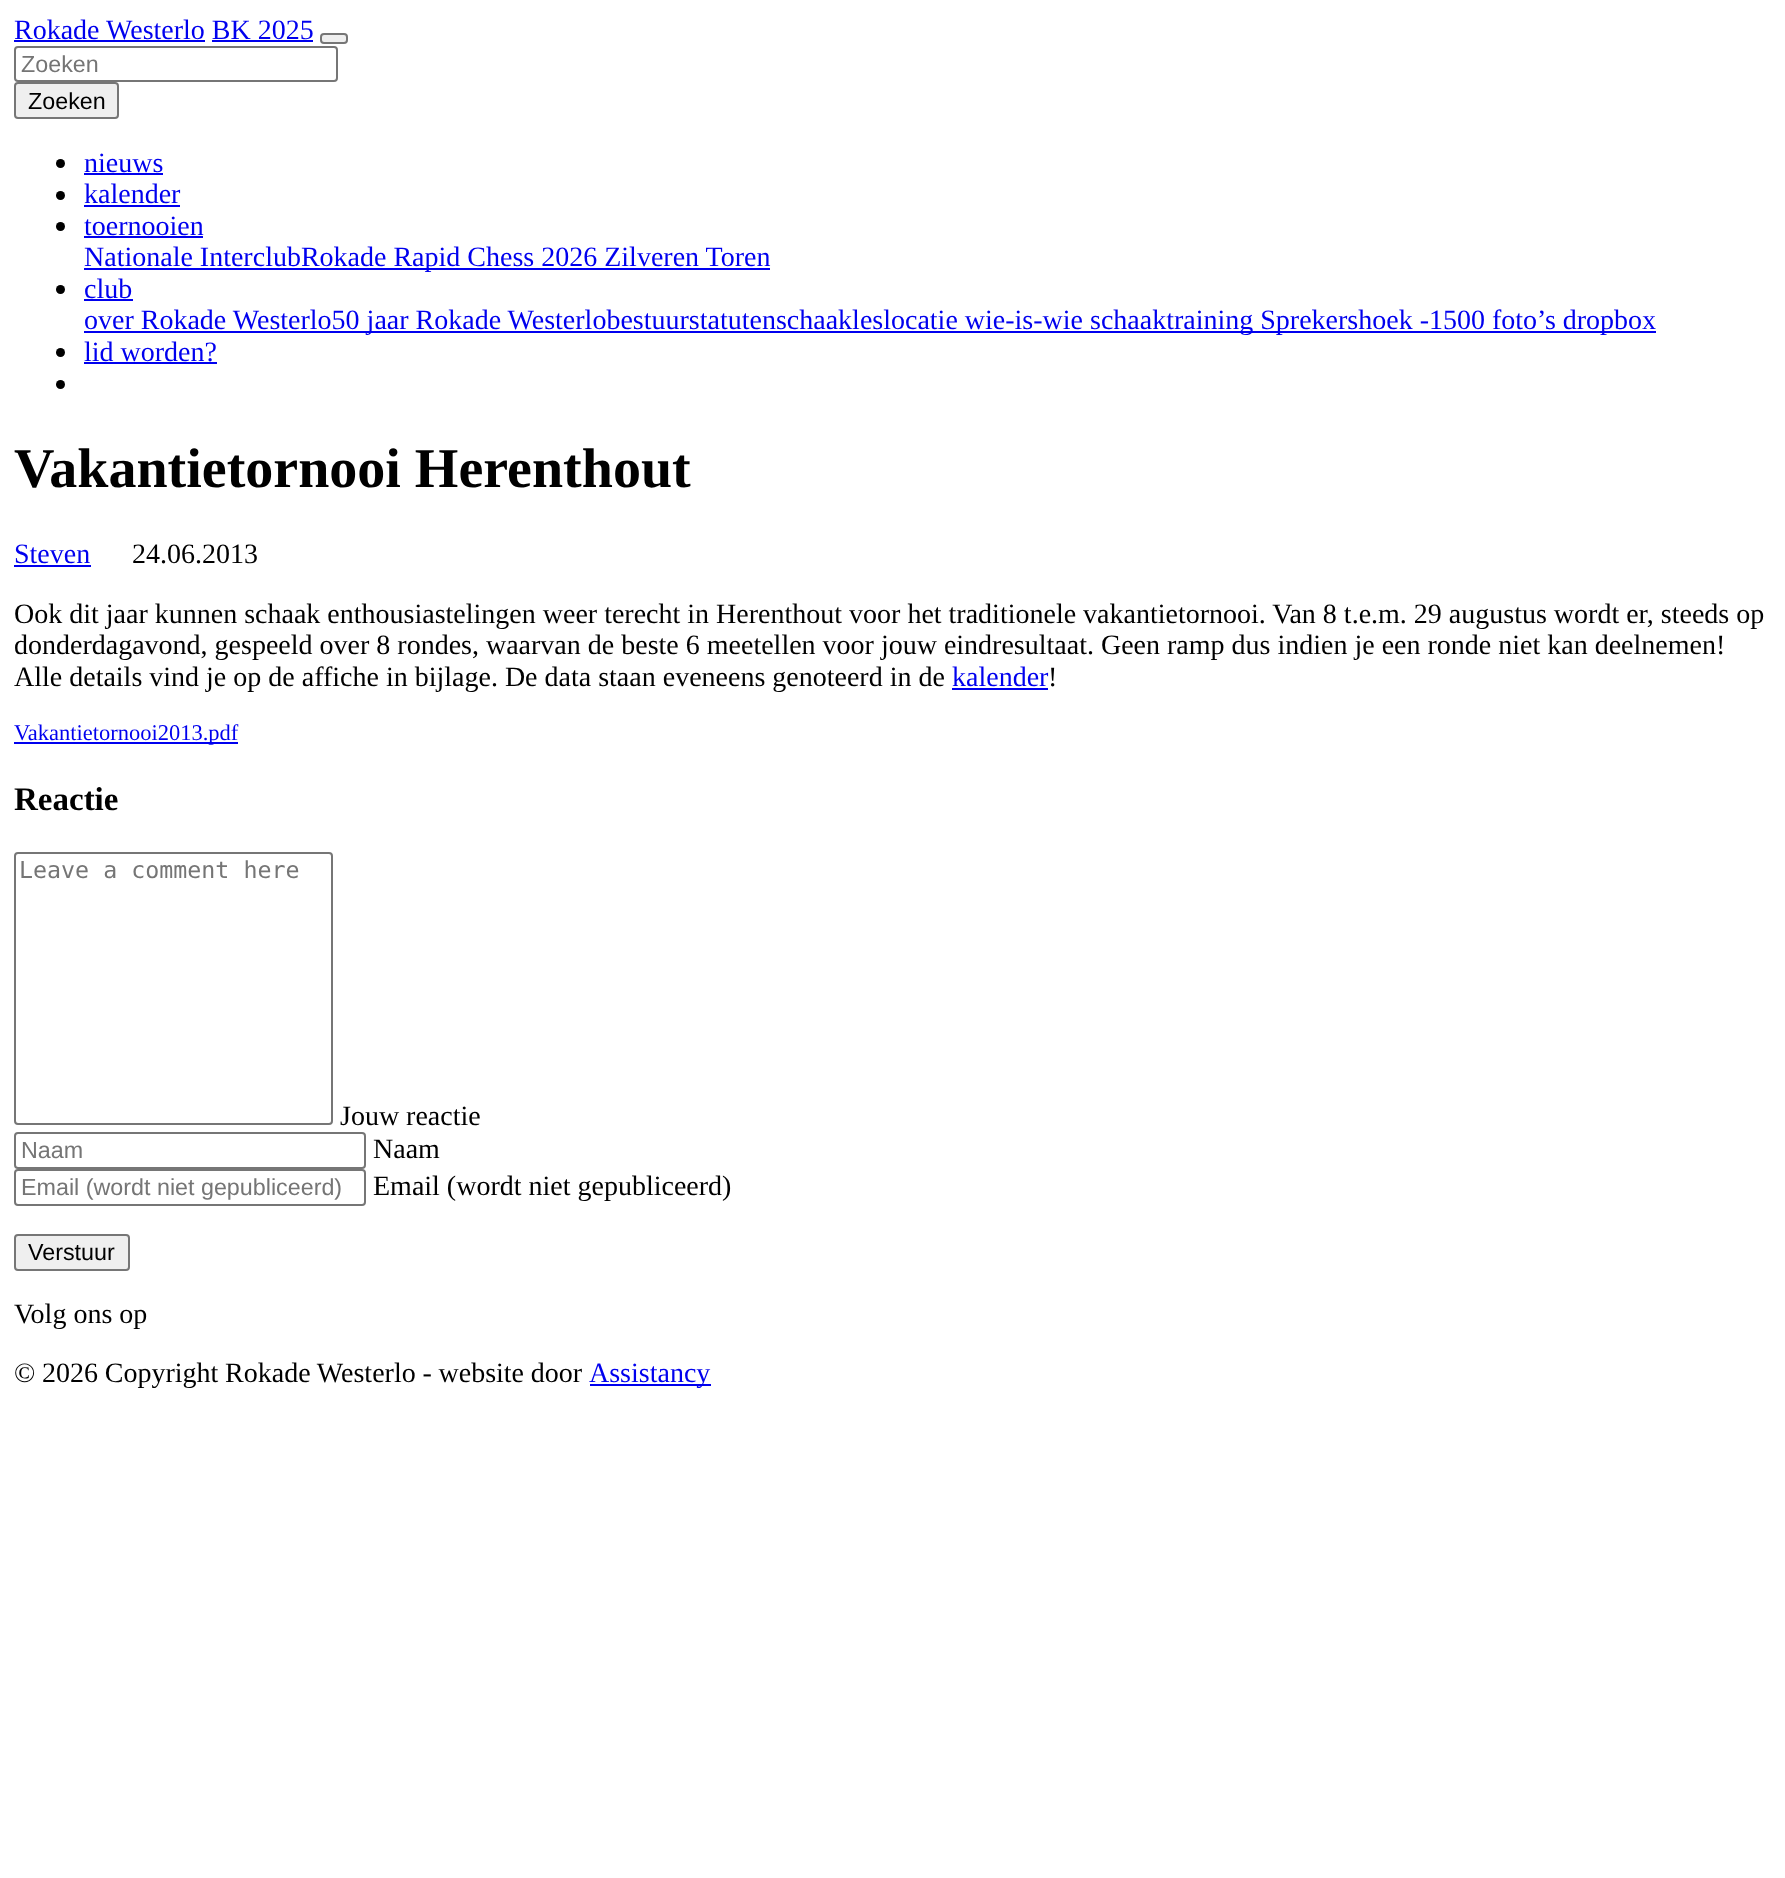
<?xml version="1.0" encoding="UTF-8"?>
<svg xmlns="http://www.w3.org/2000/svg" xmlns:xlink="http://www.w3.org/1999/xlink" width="1785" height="1878">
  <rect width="100%" height="100%" fill="#ffffff" />
  <rect x="14" y="40" width="191" height="2" fill="#0000ee" />
  <rect x="321" y="34" width="26" height="9" rx="3" fill="#efefef" stroke="#767676" stroke-width="2" />
  <rect x="212" y="40" width="101" height="2" fill="#0000ee" />
  <rect x="15" y="47" width="322" height="34" rx="3" fill="none" stroke="#767676" stroke-width="2" />
  <rect x="15" y="83" width="103" height="35" rx="3" fill="#efefef" stroke="#767676" stroke-width="2" />
  <circle cx="60.5" cy="163.5" r="4.5" fill="#000000" />
  <rect x="84" y="173" width="79" height="2" fill="#0000ee" />
  <circle cx="60.5" cy="195.5" r="4.5" fill="#000000" />
  <rect x="84" y="205" width="96" height="2" fill="#0000ee" />
  <circle cx="60.5" cy="226.5" r="4.5" fill="#000000" />
  <rect x="84" y="236" width="119" height="2" fill="#0000ee" />
  <rect x="84" y="268" width="686" height="2" fill="#0000ee" />
  <circle cx="60.5" cy="289.5" r="4.5" fill="#000000" />
  <rect x="84" y="299" width="49" height="2" fill="#0000ee" />
  <rect x="84" y="331" width="691" height="2" fill="#0000ee" />
  <rect x="775" y="331" width="881" height="2" fill="#0000ee" />
  <circle cx="60.5" cy="352.5" r="4.5" fill="#000000" />
  <rect x="84" y="362" width="133" height="2" fill="#0000ee" />
  <circle cx="60.5" cy="384.5" r="4.5" fill="#000000" />
  <rect x="14" y="565" width="77" height="2" fill="#0000ee" />
  <rect x="952" y="688" width="96" height="2" fill="#0000ee" />
  <rect x="14" y="742" width="224" height="2" fill="#0000ee" />
  <rect x="15" y="853" width="317" height="271" rx="3" fill="none" stroke="#767676" stroke-width="2" />
  <rect x="15" y="1133" width="350" height="35" rx="3" fill="none" stroke="#767676" stroke-width="2" />
  <rect x="15" y="1170" width="350" height="35" rx="3" fill="none" stroke="#767676" stroke-width="2" />
  <rect x="15" y="1235" width="114" height="35" rx="3" fill="#efefef" stroke="#767676" stroke-width="2" />
  <rect x="590" y="1384" width="121" height="2" fill="#0000ee" />
  <text x="14" y="39" style="font-family: Liberation Serif; font-size: 28px; fill: #0000ee">Rokade Westerlo BK 2025</text>
  <text x="21" y="72" style="font-family: Liberation Sans; font-size: 23.3px; fill: #757575">Zoeken</text>
  <text x="28" y="109" style="font-family: Liberation Sans; font-size: 23.3px; fill: #000000">Zoeken</text>
  <text x="84" y="172" style="font-family: Liberation Serif; font-size: 28px; fill: #0000ee">nieuws</text>
  <text x="84" y="203" style="font-family: Liberation Serif; font-size: 28px; fill: #0000ee">kalender</text>
  <text x="84" y="235" style="font-family: Liberation Serif; font-size: 28px; fill: #0000ee">toernooien</text>
  <text x="84" y="266" style="font-family: Liberation Serif; font-size: 28px; fill: #0000ee">Nationale InterclubRokade Rapid Chess 2026 Zilveren Toren</text>
  <text x="84" y="298" style="font-family: Liberation Serif; font-size: 28px; fill: #0000ee">club</text>
  <text x="84" y="329" style="font-family: Liberation Serif; font-size: 28px; fill: #0000ee">over Rokade Westerlo50 jaar Rokade Westerlobestuurstatutenschaakleslocatie wie-is-wie</text>
  <text x="1090" y="329" style="font-family: Liberation Serif; font-size: 28px; fill: #0000ee">schaaktraining Sprekershoek -1500 foto’s dropbox</text>
  <text x="84" y="361" style="font-family: Liberation Serif; font-size: 28px; fill: #0000ee">lid worden?</text>
  <text x="14" y="487" style="font-family: Liberation Serif; font-size: 56px; font-weight: bold; fill: #000000">Vakantietornooi Herenthout</text>
  <text x="14" y="563" style="font-family: Liberation Serif; font-size: 28px; fill: #0000ee">Steven</text>
  <text x="132" y="563" style="font-family: Liberation Serif; font-size: 28px; fill: #000000">24.06.2013</text>
  <text x="14" y="623" style="font-family: Liberation Serif; font-size: 28px; fill: #000000">Ook dit jaar kunnen schaak enthousiastelingen weer terecht in Herenthout voor het traditionele vakantietornooi. Van 8 t.e.m. 29 augustus wordt er, steeds op</text>
  <text x="14" y="654" style="font-family: Liberation Serif; font-size: 28px; fill: #000000">donderdagavond, gespeeld over 8 rondes, waarvan de beste 6 meetellen voor jouw eindresultaat. Geen ramp dus indien je een ronde niet kan deelnemen!</text>
  <text x="14" y="686" style="font-family: Liberation Serif; font-size: 28px; fill: #000000">Alle details vind je op de affiche in bijlage. De data staan eveneens genoteerd in de</text>
  <text x="952" y="686" style="font-family: Liberation Serif; font-size: 28px; fill: #0000ee">kalender</text>
  <text x="1048" y="686" style="font-family: Liberation Serif; font-size: 28px; fill: #000000">!</text>
  <text x="14" y="740" style="font-family: Liberation Serif; font-size: 22.5px; fill: #0000ee">Vakantietornooi2013.pdf</text>
  <text x="14" y="810" style="font-family: Liberation Serif; font-size: 33px; font-weight: bold; fill: #000000">Reactie</text>
  <text x="19" y="878" style="font-family: DejaVu Sans Mono; font-size: 23.3px; fill: #757575">Leave a comment here</text>
  <text x="340" y="1125" style="font-family: Liberation Serif; font-size: 28px; fill: #000000">Jouw reactie</text>
  <text x="21" y="1158" style="font-family: Liberation Sans; font-size: 23.3px; fill: #757575">Naam</text>
  <text x="373" y="1158" style="font-family: Liberation Serif; font-size: 28px; fill: #000000">Naam</text>
  <text x="21" y="1195" style="font-family: Liberation Sans; font-size: 23.3px; fill: #757575">Email (wordt niet gepubliceerd)</text>
  <text x="373" y="1195" style="font-family: Liberation Serif; font-size: 28px; fill: #000000">Email (wordt niet gepubliceerd)</text>
  <text x="28" y="1260" style="font-family: Liberation Sans; font-size: 23.3px; fill: #000000">Verstuur</text>
  <text x="14" y="1323" style="font-family: Liberation Serif; font-size: 28px; fill: #000000">Volg ons op</text>
  <text x="14" y="1382" word-spacing="-0.25" style="font-family: Liberation Serif; font-size: 28px; fill: #000000">© 2026 Copyright Rokade Westerlo - website door</text>
  <text x="589" y="1382" style="font-family: Liberation Serif; font-size: 28px; fill: #0000ee">Assistancy</text>
</svg>
